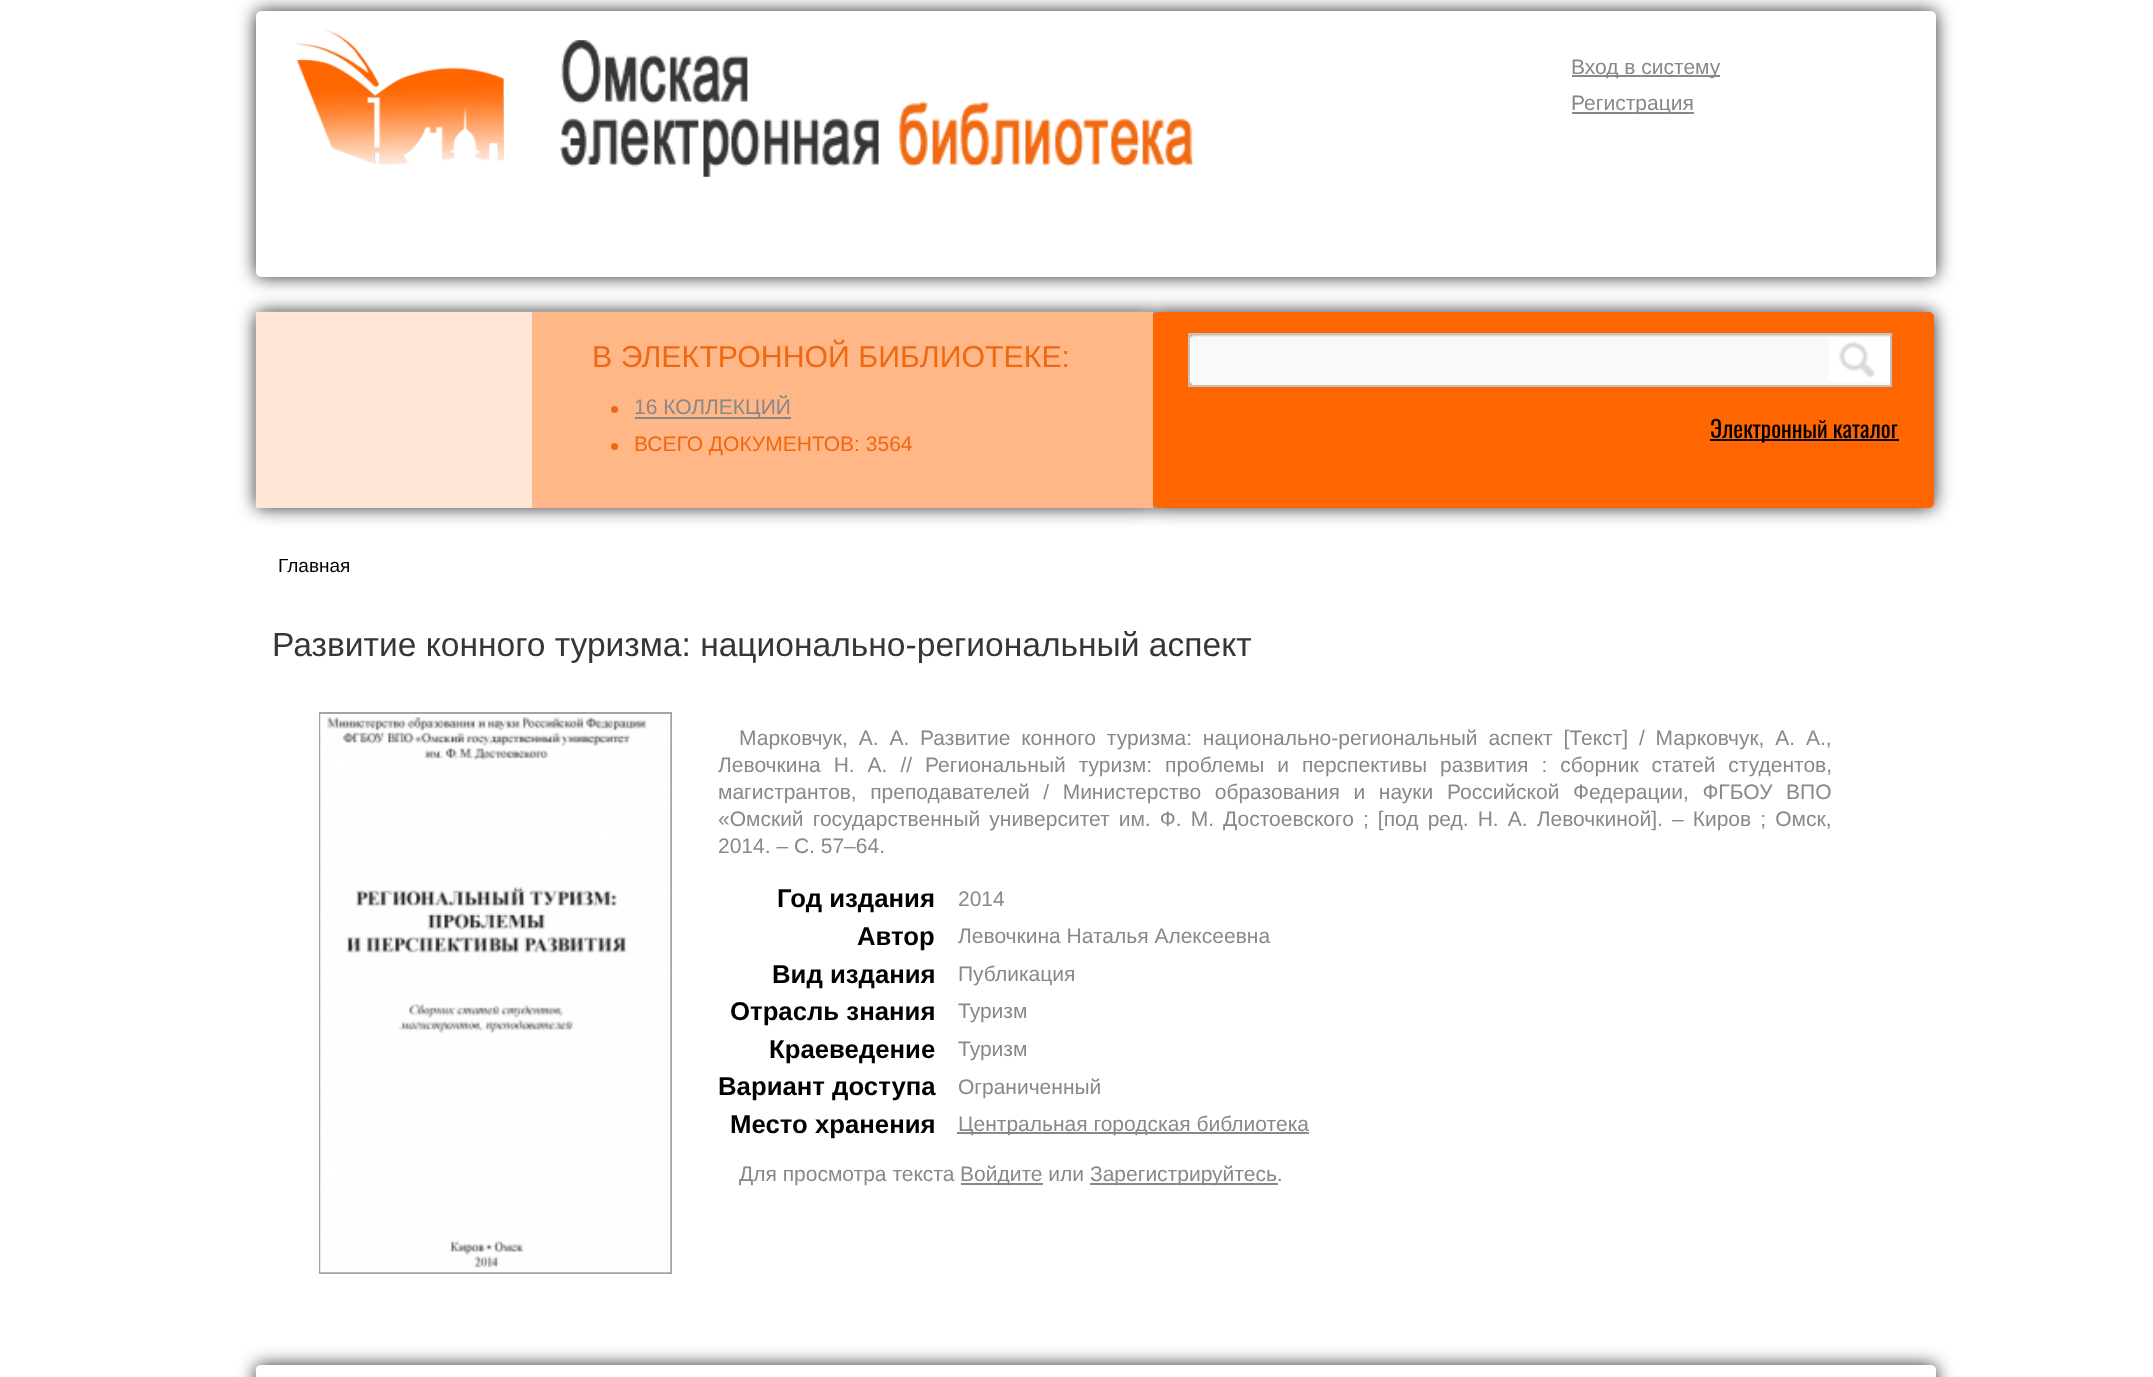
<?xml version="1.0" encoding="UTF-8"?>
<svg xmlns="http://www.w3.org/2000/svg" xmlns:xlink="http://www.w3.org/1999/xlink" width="2153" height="1377">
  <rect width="100%" height="100%" fill="#ffffff" />
  <rect x="256" y="11" width="1680" height="266" rx="5" fill="#000000" fill-opacity="0.83" filter="blur(9px)" />
  <rect x="256" y="11" width="1680" height="266" rx="5" fill="#ffffff" />
  <image x="295" y="28" width="209" height="137" xlink:href="image1.png" />
  <image x="560" y="40" width="634" height="137" xlink:href="image2.png" />
  <rect x="1572" y="75" width="148" height="2" fill="#888888" />
  <rect x="1572" y="112" width="122" height="2" fill="#888888" />
  <rect x="256" y="312" width="897" height="196" rx="5" fill="#000000" fill-opacity="0.83" filter="blur(9px)" />
  <image x="255" y="311" width="895" height="193" xlink:href="image3.png" />
  <rect x="256" y="312" width="276" height="196" fill="#fee5d5" />
  <rect x="1153" y="312" width="781" height="196" rx="5" fill="#000000" fill-opacity="0.83" filter="blur(9px)" />
  <rect x="532" y="312" width="621" height="196" fill="#ffb788" />
  <circle cx="614.5" cy="409.5" r="3.5" fill="#ef6912" />
  <rect x="635" y="417" width="156" height="2" fill="#888888" />
  <circle cx="614.5" cy="446.5" r="3.5" fill="#ef6912" />
  <rect x="1153" y="312" width="781" height="196" rx="5" fill="#ff6500" />
  <image x="1190" y="335" width="700" height="50" xlink:href="image4.png" />
  <rect x="1189" y="334" width="702" height="52" fill="none" stroke="#c7c1c1" stroke-width="2" />
  <rect x="1710" y="439" width="189" height="2" fill="#000000" />
  <rect x="320" y="713" width="351" height="560" fill="none" stroke="#a5a3a3" stroke-width="2" />
  <image x="320" y="714" width="351" height="559" xlink:href="image5.png" />
  <rect x="957" y="1132" width="352" height="2" fill="#888888" />
  <rect x="961" y="1183" width="82" height="2" fill="#888888" />
  <rect x="1090" y="1183" width="188" height="2" fill="#888888" />
  <rect x="256" y="1365" width="1680" height="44" rx="5" fill="#000000" fill-opacity="0.83" filter="blur(9px)" />
  <rect x="256" y="1365" width="1680" height="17" rx="5" fill="#ffffff" />
  <image x="255" y="1365" width="4" height="12" xlink:href="image6.png" />
  <text x="1571" y="74" style="font-family: Liberation Sans; font-size: 21px; fill: #888888">Вход в систему</text>
  <text x="1571" y="110" style="font-family: Liberation Sans; font-size: 21px; fill: #888888">Регистрация</text>
  <text x="592" y="367" style="font-family: Liberation Sans; font-size: 30.3px; fill: #ef6912">В ЭЛЕКТРОННОЙ БИБЛИОТЕКЕ:</text>
  <text x="634" y="414" style="font-family: Liberation Sans; font-size: 21px; fill: #888888">16 КОЛЛЕКЦИЙ</text>
  <text x="634" y="451" style="font-family: Liberation Sans; font-size: 21px; fill: #ef6912">ВСЕГО ДОКУМЕНТОВ: 3564</text>
  <text x="1710" y="438" style="font-family: Oswald; font-size: 23.25px; fill: #000000">Электронный каталог</text>
  <text x="278" y="572" style="font-family: Liberation Sans; font-size: 19px; fill: #000000">Главная</text>
  <text x="272" y="656" style="font-family: Liberation Sans; font-size: 33.6px; fill: #363636">Развитие конного туризма: национально-региональный аспект</text>
  <text x="739" y="745" word-spacing="5" style="font-family: Liberation Sans; font-size: 21px; fill: #888888">Марковчук, А. А. Развитие конного туризма: национально-региональный аспект [Текст] / Марковчук, А. А.,</text>
  <text x="718" y="772" word-spacing="7.1" style="font-family: Liberation Sans; font-size: 21px; fill: #888888">Левочкина Н. А. // Региональный туризм: проблемы и перспективы развития : сборник статей студентов,</text>
  <text x="718" y="799" word-spacing="7.75" style="font-family: Liberation Sans; font-size: 21px; fill: #888888">магистрантов, преподавателей / Министерство образования и науки Российской Федерации, ФГБОУ ВПО</text>
  <text x="718" y="826" word-spacing="3.25" style="font-family: Liberation Sans; font-size: 21px; fill: #888888">«Омский государственный университет им. Ф. М. Достоевского ; [под ред. Н. А. Левочкиной]. – Киров ; Омск,</text>
  <text x="718" y="853" style="font-family: Liberation Sans; font-size: 21px; fill: #888888">2014. – С. 57–64.</text>
  <text x="777" y="907" style="font-family: Liberation Sans; font-size: 25.75px; font-weight: bold; fill: #000000">Год издания</text>
  <text x="958" y="906" style="font-family: Liberation Sans; font-size: 21px; fill: #888888">2014</text>
  <text x="857" y="945" style="font-family: Liberation Sans; font-size: 25.75px; font-weight: bold; fill: #000000">Автор</text>
  <text x="958" y="943" style="font-family: Liberation Sans; font-size: 21px; fill: #888888">Левочкина Наталья Алексеевна</text>
  <text x="772" y="983" style="font-family: Liberation Sans; font-size: 25.75px; font-weight: bold; fill: #000000">Вид издания</text>
  <text x="958" y="981" style="font-family: Liberation Sans; font-size: 21px; fill: #888888">Публикация</text>
  <text x="730" y="1020" style="font-family: Liberation Sans; font-size: 25.75px; font-weight: bold; fill: #000000">Отрасль знания</text>
  <text x="958" y="1018" style="font-family: Liberation Sans; font-size: 21px; fill: #888888">Туризм</text>
  <text x="769" y="1058" style="font-family: Liberation Sans; font-size: 25.75px; font-weight: bold; fill: #000000">Краеведение</text>
  <text x="958" y="1056" style="font-family: Liberation Sans; font-size: 21px; fill: #888888">Туризм</text>
  <text x="718" y="1095" style="font-family: Liberation Sans; font-size: 25.75px; font-weight: bold; fill: #000000">Вариант доступа</text>
  <text x="958" y="1094" style="font-family: Liberation Sans; font-size: 21px; fill: #888888">Ограниченный</text>
  <text x="730" y="1133" style="font-family: Liberation Sans; font-size: 25.75px; font-weight: bold; fill: #000000">Место хранения</text>
  <text x="958" y="1131" style="font-family: Liberation Sans; font-size: 21px; fill: #888888">Центральная городская библиотека</text>
  <text x="739" y="1181" style="font-family: Liberation Sans; font-size: 21px; fill: #888888">Для просмотра текста</text>
  <text x="960" y="1181" style="font-family: Liberation Sans; font-size: 21px; fill: #888888">Войдите или</text>
  <text x="1090" y="1181" style="font-family: Liberation Sans; font-size: 21px; fill: #888888">Зарегистрируйтесь.</text>
</svg>
